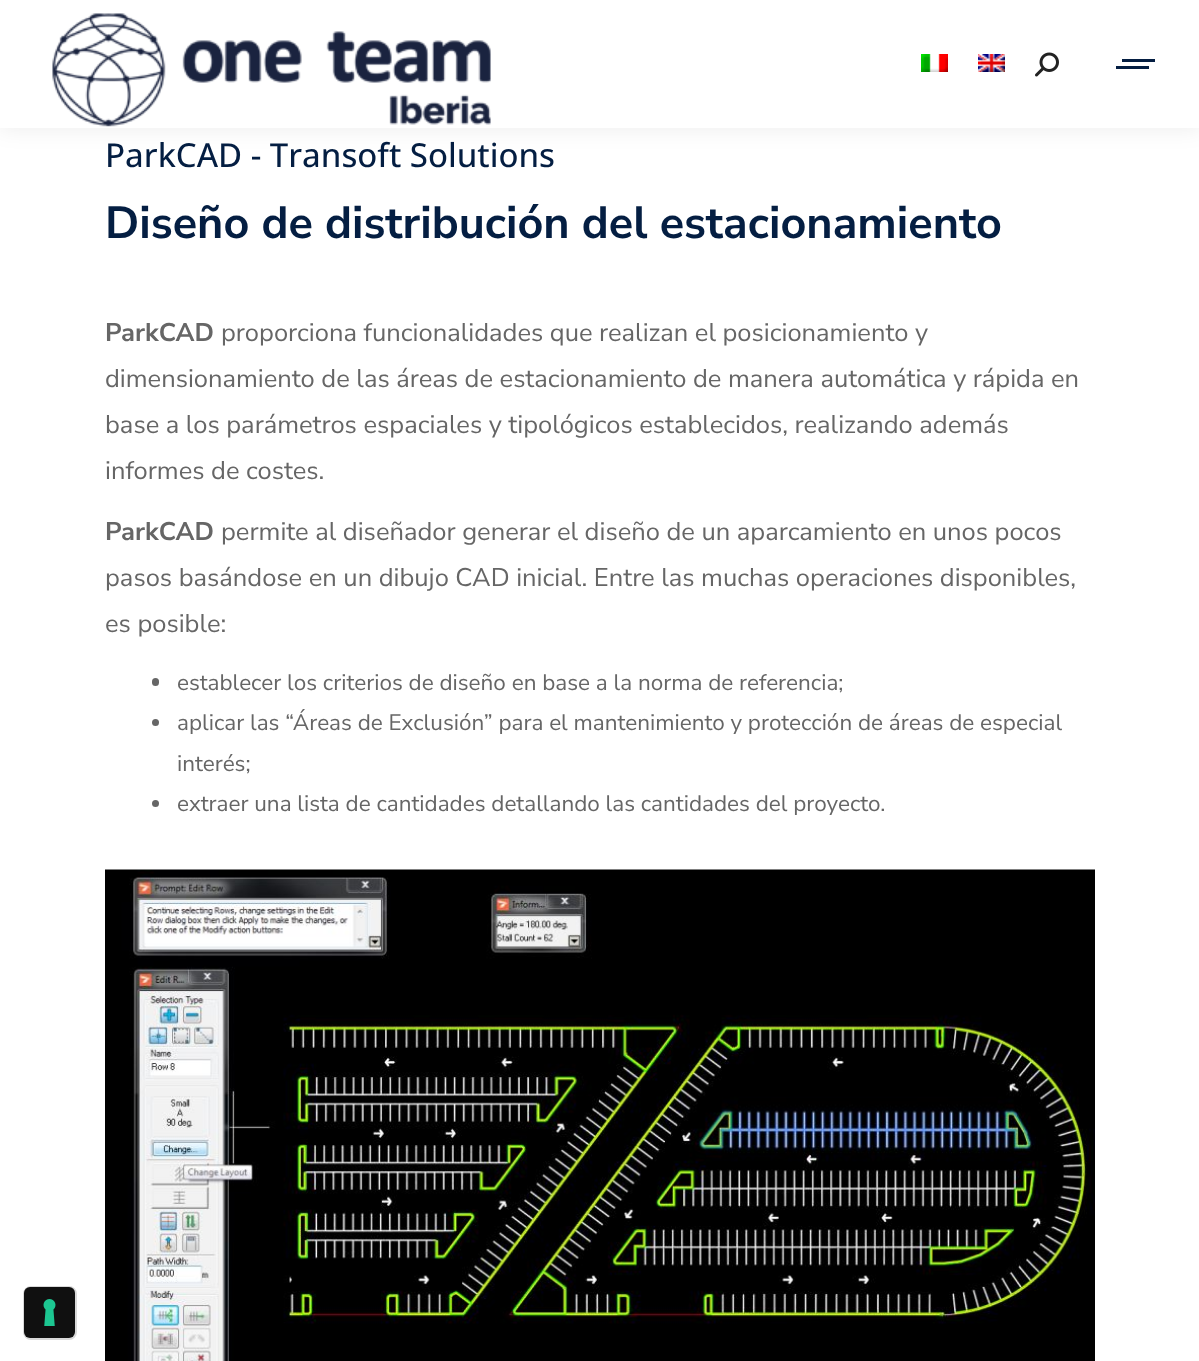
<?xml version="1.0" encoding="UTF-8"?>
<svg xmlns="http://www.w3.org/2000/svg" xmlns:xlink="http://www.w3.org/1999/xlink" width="1199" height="1361">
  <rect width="100%" height="100%" fill="#ffffff" />
  <rect x="-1" y="-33" width="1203" height="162" fill="#000000" fill-opacity="0.07" filter="blur(11px)" />
  <rect width="1199" height="128" fill="#ffffff" />
  <image x="52" y="13" width="439" height="114" xlink:href="image1.png" />
  <image x="921" y="54" width="27" height="18" xlink:href="image2.png" />
  <image x="978" y="54" width="27" height="18" xlink:href="image3.png" />
  <image x="1035" y="52" width="24" height="25" xlink:href="image4.png" />
  <rect x="1122" y="59" width="33" height="3" fill="#041e42" />
  <rect x="1116" y="66" width="33" height="3" fill="#041e42" />
  <rect x="152" y="678" width="7" height="8" rx="3.5" fill="#666666" />
  <circle cx="155.5" cy="722.5" r="3.5" fill="#666666" />
  <circle cx="155.5" cy="803.5" r="3.5" fill="#666666" />
  <image x="105" y="869" width="990" height="492" xlink:href="image5.png" />
  <rect x="24" y="1287" width="52" height="52" rx="7" fill="none" stroke="#d9d9d9" stroke-width="2" />
  <rect x="24" y="1287" width="51" height="51" rx="6" fill="#101010" />
  <image x="43" y="1299" width="13" height="27" xlink:href="image6.png" />
  <text x="105" y="167" style="font-family: Open Sans; font-size: 33px; font-weight: 500; fill: #041e42">ParkCAD - Transoft Solutions</text>
  <text x="105" y="238" style="font-family: Nunito Sans; font-size: 45px; font-weight: bold; fill: #041e42">Diseño de distribución del estacionamiento</text>
  <text x="105" y="341" style="font-family: Nunito Sans; font-size: 25.5px; font-weight: bold; fill: #666666">ParkCAD</text>
  <text x="221" y="341" style="font-family: Nunito Sans; font-size: 25.5px; fill: #666666">proporciona funcionalidades que realizan el posicionamiento y</text>
  <text x="105" y="387" style="font-family: Nunito Sans; font-size: 25.5px; fill: #666666">dimensionamiento de las áreas de estacionamiento de manera automática y rápida en</text>
  <text x="105" y="433" style="font-family: Nunito Sans; font-size: 25.5px; fill: #666666">base a los parámetros espaciales y tipológicos establecidos, realizando además</text>
  <text x="105" y="479" style="font-family: Nunito Sans; font-size: 25.5px; fill: #666666">informes de costes.</text>
  <text x="105" y="540" style="font-family: Nunito Sans; font-size: 25.5px; font-weight: bold; fill: #666666">ParkCAD</text>
  <text x="221" y="540" style="font-family: Nunito Sans; font-size: 25.5px; fill: #666666">permite al diseñador generar el diseño de un aparcamiento en unos pocos</text>
  <text x="105" y="586" style="font-family: Nunito Sans; font-size: 25.5px; fill: #666666">pasos basándose en un dibujo CAD inicial. Entre las muchas operaciones disponibles,</text>
  <text x="105" y="632" style="font-family: Nunito Sans; font-size: 25.5px; fill: #666666">es posible:</text>
  <text x="177" y="690" style="font-family: Nunito Sans; font-size: 22.5px; fill: #666666">establecer los criterios de diseño en base a la norma de referencia;</text>
  <text x="177" y="730" style="font-family: Nunito Sans; font-size: 22.5px; fill: #666666">aplicar las “Áreas de Exclusión” para el mantenimiento y protección de áreas de especial</text>
  <text x="177" y="771" style="font-family: Nunito Sans; font-size: 22.5px; fill: #666666">interés;</text>
  <text x="177" y="811" style="font-family: Nunito Sans; font-size: 22.5px; fill: #666666">extraer una lista de cantidades detallando las cantidades del proyecto.</text>
</svg>
